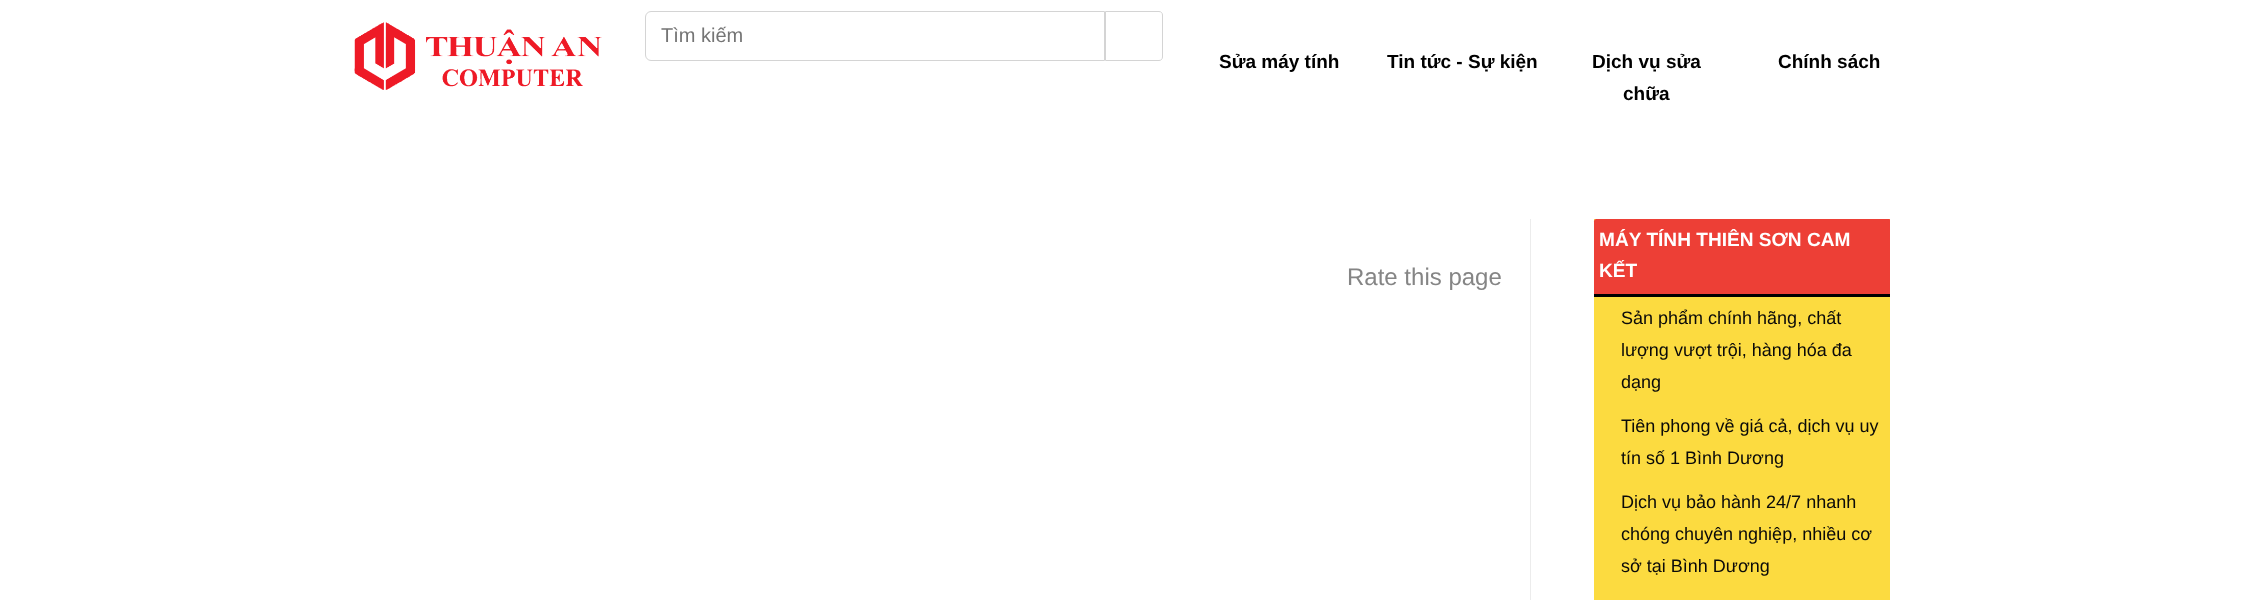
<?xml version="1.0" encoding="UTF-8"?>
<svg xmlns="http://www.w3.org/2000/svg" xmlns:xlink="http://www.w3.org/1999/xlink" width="2267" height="600">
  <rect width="100%" height="100%" fill="#ffffff" />
  <image x="354" y="22" width="248" height="68" xlink:href="image1.png" />
  <path d="M 651 11.5 h 453.5 v 49 h -453.5 c -3 0 -5.5 -2.5 -5.5 -5.5 v -38 c 0 -3 2.5 -5.5 5.5 -5.5 z" fill="none" stroke="#d4d4d4" />
  <path d="M 1105.5 11.5 h 53.5 c 2 0 3.5 1.5 3.5 3.5 v 42 c 0 2 -1.5 3.5 -3.5 3.5 h -53.5 z" fill="none" stroke="#d4d4d4" />
  <rect x="1530" y="219" width="1" height="381" fill="#ececec" />
  <rect x="1594" y="219" width="296" height="381" fill="#fcdb40" />
  <path d="M 1596.5 219 h 292.5 c 0.5 0 1 0.5 1 1 v 76 h -296 v -74.5 c 0 -1.5 1 -2.5 2.5 -2.5 z" fill="#ed3f36" />
  <rect x="1594" y="294" width="296" height="3" fill="#000000" />
  <text x="661" y="42" style="font-family: Liberation Sans; font-size: 20px; fill: #757575">Tìm kiếm</text>
  <text x="1219" y="68" style="font-family: Liberation Sans; font-size: 19px; font-weight: bold; fill: #000000">Sửa máy tính</text>
  <text x="1387" y="68" style="font-family: Liberation Sans; font-size: 19px; font-weight: bold; fill: #000000">Tin tức - Sự kiện</text>
  <text x="1592" y="68" style="font-family: Liberation Sans; font-size: 19px; font-weight: bold; fill: #000000">Dịch vụ sửa</text>
  <text x="1623" y="100" style="font-family: Liberation Sans; font-size: 19px; font-weight: bold; fill: #000000">chữa</text>
  <text x="1778" y="68" style="font-family: Liberation Sans; font-size: 19px; font-weight: bold; fill: #000000">Chính sách</text>
  <text x="1347" y="285" style="font-family: Liberation Sans; font-size: 24px; fill: #858585">Rate this page</text>
  <text x="1599" y="246" style="font-family: Liberation Sans; font-size: 19.1px; font-weight: bold; fill: #ffffff">MÁY TÍNH THIÊN SƠN CAM</text>
  <text x="1599" y="277" style="font-family: Liberation Sans; font-size: 19.1px; font-weight: bold; fill: #ffffff">KẾT</text>
  <text x="1621" y="324" style="font-family: Liberation Sans; font-size: 18px; fill: #0a0a0a">Sản phẩm chính hãng, chất</text>
  <text x="1621" y="356" style="font-family: Liberation Sans; font-size: 18px; fill: #0a0a0a">lượng vượt trội, hàng hóa đa</text>
  <text x="1621" y="388" style="font-family: Liberation Sans; font-size: 18px; fill: #0a0a0a">dạng</text>
  <text x="1621" y="432" style="font-family: Liberation Sans; font-size: 18px; fill: #0a0a0a">Tiên phong về giá cả, dịch vụ uy</text>
  <text x="1621" y="464" style="font-family: Liberation Sans; font-size: 18px; fill: #0a0a0a">tín số 1 Bình Dương</text>
  <text x="1621" y="508" style="font-family: Liberation Sans; font-size: 18px; fill: #0a0a0a">Dịch vụ bảo hành 24/7 nhanh</text>
  <text x="1621" y="540" style="font-family: Liberation Sans; font-size: 18px; fill: #0a0a0a">chóng chuyên nghiệp, nhiều cơ</text>
  <text x="1621" y="572" style="font-family: Liberation Sans; font-size: 18px; fill: #0a0a0a">sở tại Bình Dương</text>
</svg>
